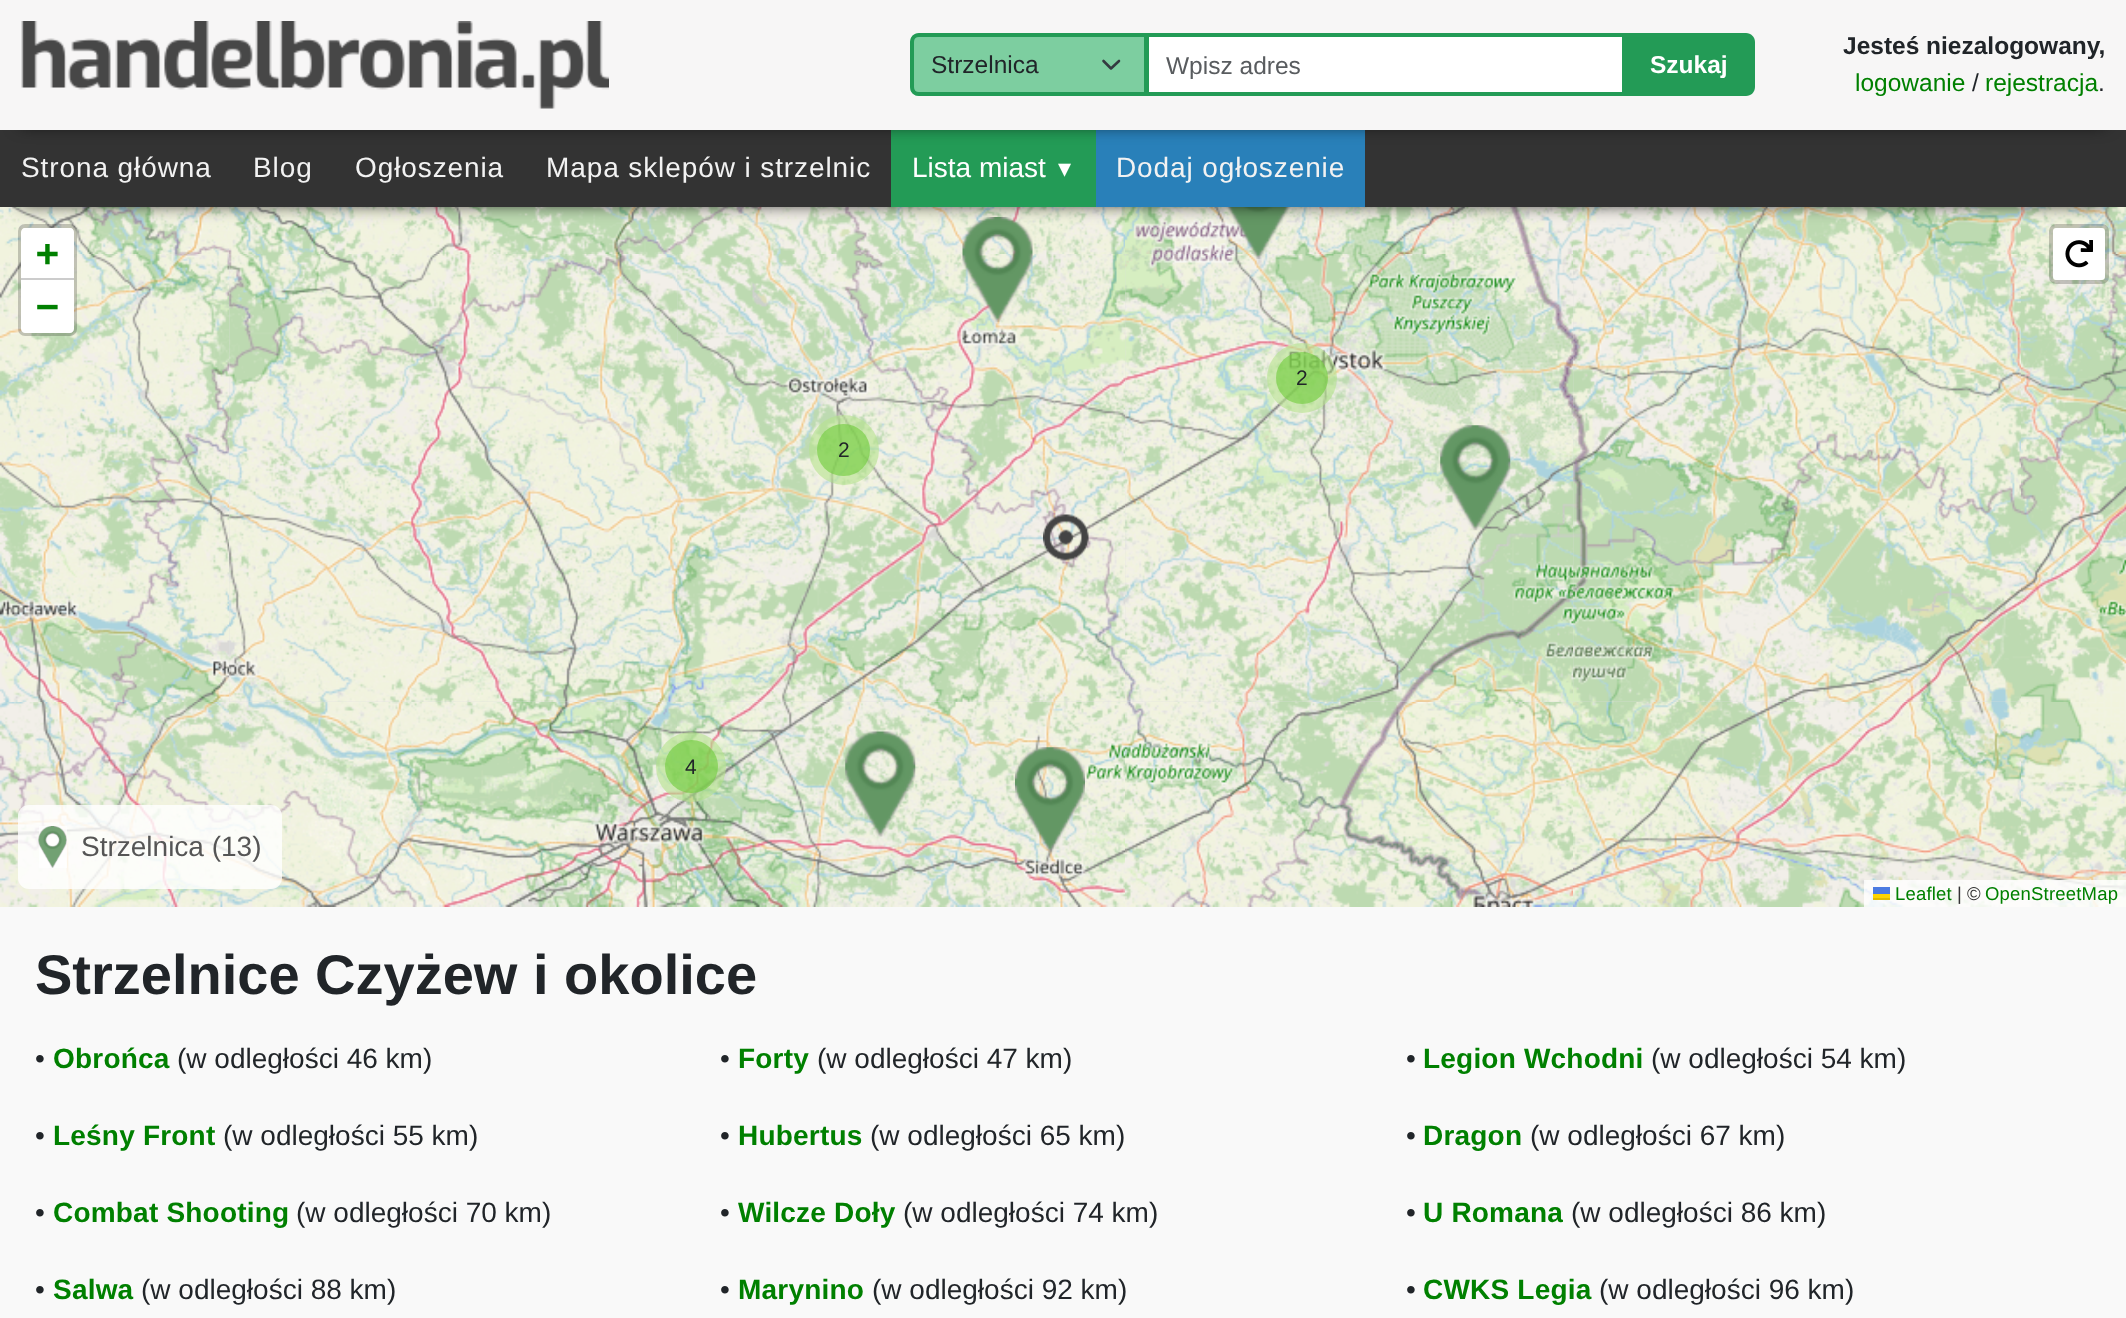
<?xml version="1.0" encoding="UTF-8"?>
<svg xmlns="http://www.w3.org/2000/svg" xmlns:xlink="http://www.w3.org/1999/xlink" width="2126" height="1318">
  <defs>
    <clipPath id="clip1"><path d="M 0 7 h 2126 v 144 h -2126 z m 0 -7 h 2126 v 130 h -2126 z" clip-rule="evenodd" /></clipPath>
  </defs>
  <rect width="100%" height="100%" fill="#f7f6f6" />
  <image x="0" y="207" width="229" height="47" xlink:href="image4.png" />
  <rect x="229" y="254" width="1792" height="448" fill="#dddddd" />
  <image x="677" y="207" width="448" height="47" xlink:href="image6.png" />
  <image x="677" y="254" width="449" height="448" xlink:href="image12.png" />
  <image x="229" y="253" width="449" height="449" xlink:href="image11.png" />
  <image x="229" y="207" width="448" height="47" xlink:href="image5.png" />
  <image x="1125" y="207" width="448" height="47" xlink:href="image7.png" />
  <image x="1573" y="207" width="448" height="47" xlink:href="image8.png" />
  <image x="2021" y="207" width="105" height="47" xlink:href="image9.png" />
  <image x="962" y="217" width="71" height="105" xlink:href="image22.png" />
  <image x="1125" y="254" width="449" height="448" xlink:href="image13.png" />
  <image x="1226" y="207" width="65" height="52" xlink:href="image23.png" />
  <rect x="21" y="168" width="2084" height="35" fill="#000000" filter="blur(9px)" />
  <rect y="130" width="2126" height="77" fill="#333333" />
  <rect x="891" y="130" width="205" height="77" fill="#239b56" />
  <rect x="1096" y="130" width="269" height="77" fill="#2980b9" />
  <g clip-path="url(#clip1)">
    <rect x="21" y="35" width="2084" height="88" fill="#000000" filter="blur(9px)" />
  </g>
  <image x="21" y="21" width="588" height="88" xlink:href="image1.png" />
  <path d="M 919 33 h 229 v 63 h -229 c -5 0 -9 -4 -9 -9 v -45 c 0 -5 4 -9 9 -9 z" fill="#7dcea0" />
  <path d="M 1103.5 61 l 7.5 7.5 l 8 -7.5" fill="none" stroke="#343a40" stroke-width="2.6" stroke-linecap="round" stroke-linejoin="round" />
  <path d="M 919 35 h 227 v 59 h -227 c -4 0 -7 -3 -7 -7 v -45 c 0 -4 3 -7 7 -7 z" fill="none" stroke="#239b56" stroke-width="4" />
  <rect x="1147" y="35" width="477" height="59" fill="#ffffff" stroke="#239b56" stroke-width="4" />
  <path d="M 1622 33 h 124 c 5 0 9 4 9 9 v 45 c 0 5 -4 9 -9 9 h -124 z" fill="#239b56" />
  <rect y="907" width="2126" height="411" fill="#f9f9f9" />
  <image x="0" y="254" width="229" height="448" xlink:href="image10.png" />
  <rect x="20" y="226" width="55" height="108" rx="5" fill="none" stroke="#000000" stroke-opacity="0.2" stroke-width="4" />
  <path d="M 25 228 h 45 c 2 0 4 2 4 4 v 48 h -53 v -48 c 0 -2 2 -4 4 -4 z" fill="#ffffff" />
  <rect x="21" y="278" width="53" height="2" fill="#cccccc" />
  <path d="M 21 280 h 53 v 49 c 0 2 -2 4 -4 4 h -45 c -2 0 -4 -2 -4 -4 z" fill="#ffffff" />
  <image x="2021" y="254" width="105" height="448" xlink:href="image15.png" />
  <rect x="2051" y="226" width="56" height="56" rx="5" fill="none" stroke="#000000" stroke-opacity="0.2" stroke-width="4" />
  <rect x="2053" y="228" width="52" height="52" rx="4" fill="#ffffff" />
  <image x="2065" y="240" width="28" height="28" xlink:href="image2.png" />
  <image x="0" y="702" width="229" height="205" xlink:href="image16.png" />
  <image x="229" y="702" width="448" height="205" xlink:href="image17.png" />
  <rect x="18" y="805" width="264" height="84" rx="11" fill="#ffffff" fill-opacity="0.8" />
  <rect x="39" y="826" width="28" height="42" fill="#ffffff" fill-opacity="0.72" />
  <image x="38" y="826" width="29" height="42" xlink:href="image3.png" />
  <image x="1573" y="702" width="448" height="205" xlink:href="image20.png" />
  <image x="2021" y="702" width="105" height="205" xlink:href="image21.png" />
  <rect x="1864" y="880" width="262" height="27" fill="#ffffff" fill-opacity="0.8" />
  <rect x="1873" y="887" width="17" height="7" fill="#4c7be1" />
  <rect x="1873" y="894" width="17" height="4" fill="#ffd500" />
  <rect x="1873" y="898" width="17" height="2" fill="#e0bc00" />
  <image x="1573" y="254" width="448" height="448" xlink:href="image14.png" />
  <image x="677" y="702" width="448" height="205" xlink:href="image18.png" />
  <image x="1125" y="702" width="448" height="205" xlink:href="image19.png" />
  <circle cx="1302" cy="378" r="35" fill="#b6e28d" fill-opacity="0.6" />
  <circle cx="1302" cy="378" r="26" fill="#6ecc39" fill-opacity="0.6" />
  <circle cx="844" cy="450" r="35" fill="#b6e28d" fill-opacity="0.6" />
  <rect x="817" y="424" width="53" height="52" rx="26" fill="#6ecc39" fill-opacity="0.6" />
  <image x="1440" y="425" width="71" height="106" xlink:href="image24.png" />
  <image x="1043" y="514" width="46" height="47" xlink:href="image25.png" />
  <circle cx="691" cy="767" r="35" fill="#b6e28d" fill-opacity="0.6" />
  <circle cx="691.5" cy="766.5" r="26.5" fill="#6ecc39" fill-opacity="0.6" />
  <image x="845" y="731" width="71" height="106" xlink:href="image26.png" />
  <image x="1015" y="747" width="70" height="106" xlink:href="image27.png" />
  <text x="931" y="73" style="font-family: Liberation Sans; font-size: 24.5px; fill: #212529">Strzelnica</text>
  <text x="1166" y="74" style="font-family: Liberation Sans; font-size: 24.5px; fill: #595c5f">Wpisz adres</text>
  <text x="1650" y="73" style="font-family: Liberation Sans; font-size: 24.5px; font-weight: bold; fill: #ffffff">Szukaj</text>
  <text x="1843" y="54" style="font-family: Liberation Sans; font-size: 24.5px; font-weight: bold; fill: #212529">Jesteś niezalogowany,</text>
  <text x="1855" y="91" style="font-family: Liberation Sans; font-size: 24.5px; fill: #008000">logowanie</text>
  <text x="1972" y="91" style="font-family: Liberation Sans; font-size: 24.5px; fill: #212529">/</text>
  <text x="1985" y="91" style="font-family: Liberation Sans; font-size: 24.5px; fill: #008000">rejestracja</text>
  <text x="2098" y="91" style="font-family: Liberation Sans; font-size: 24.5px; fill: #212529">.</text>
  <text x="21" y="177" style="font-family: Liberation Sans; font-size: 28px; letter-spacing: 0.9px; fill: #f2f2f2">Strona główna</text>
  <text x="253" y="177" style="font-family: Liberation Sans; font-size: 28px; letter-spacing: 0.9px; fill: #f2f2f2">Blog</text>
  <text x="355" y="177" style="font-family: Liberation Sans; font-size: 28px; letter-spacing: 0.9px; fill: #f2f2f2">Ogłoszenia</text>
  <text x="546" y="177" style="font-family: Liberation Sans; font-size: 28px; letter-spacing: 0.9px; fill: #f2f2f2">Mapa sklepów i strzelnic</text>
  <text x="912" y="177" style="font-family: Liberation Sans; font-size: 28px; fill: #ffffff">Lista miast</text>
  <text x="1058" y="177" style="font-family: DejaVu Sans; font-size: 26px; letter-spacing: 7px; fill: #ffffff">▾</text>
  <text x="1116" y="177" style="font-family: Liberation Sans; font-size: 28px; letter-spacing: 0.9px; fill: #f2f2f2">Dodaj ogłoszenie</text>
  <text x="36" y="266" style="font-family: DejaVu Sans Mono; font-size: 38px; font-weight: bold; letter-spacing: 0.2px; fill: #008000">+</text>
  <text x="36" y="319" style="font-family: DejaVu Sans Mono; font-size: 38px; font-weight: bold; letter-spacing: 0.2px; fill: #008000">−</text>
  <text x="81" y="856" style="font-family: Liberation Sans; font-size: 28px; fill: #555555">Strzelnica (13)</text>
  <text x="1895" y="900" style="font-family: Liberation Sans; font-size: 18.5px; letter-spacing: 0.2px; fill: #008000">Leaflet</text>
  <text x="1957" y="900" style="font-family: Liberation Sans; font-size: 18.5px; fill: #333333">| ©</text>
  <text x="1985" y="900" style="font-family: Liberation Sans; font-size: 18.5px; letter-spacing: 0.2px; fill: #008000">OpenStreetMap</text>
  <text x="1296" y="385" style="font-family: Liberation Sans; font-size: 21px; fill: #212529">2</text>
  <text x="838" y="457" style="font-family: Liberation Sans; font-size: 21px; fill: #212529">2</text>
  <text x="685" y="774" style="font-family: Liberation Sans; font-size: 21px; fill: #212529">4</text>
  <text x="35" y="994" style="font-family: Liberation Sans; font-size: 56px; font-weight: bold; fill: #212529">Strzelnice Czyżew i okolice</text>
  <text x="35" y="1068" style="font-family: Liberation Sans; font-size: 28px; fill: #212529">•</text>
  <text x="53" y="1068" style="font-family: Liberation Sans; font-size: 28px; font-weight: bold; letter-spacing: 0.2px; fill: #008000">Obrońca</text>
  <text x="177" y="1068" style="font-family: Liberation Sans; font-size: 28px; fill: #212529">(w odległości 46 km)</text>
  <text x="720" y="1068" style="font-family: Liberation Sans; font-size: 28px; fill: #212529">•</text>
  <text x="738" y="1068" style="font-family: Liberation Sans; font-size: 28px; font-weight: bold; letter-spacing: 0.2px; fill: #008000">Forty</text>
  <text x="817" y="1068" style="font-family: Liberation Sans; font-size: 28px; fill: #212529">(w odległości 47 km)</text>
  <text x="1406" y="1068" style="font-family: Liberation Sans; font-size: 28px; fill: #212529">•</text>
  <text x="1423" y="1068" style="font-family: Liberation Sans; font-size: 28px; font-weight: bold; letter-spacing: 0.2px; fill: #008000">Legion Wchodni</text>
  <text x="1651" y="1068" style="font-family: Liberation Sans; font-size: 28px; fill: #212529">(w odległości 54 km)</text>
  <text x="35" y="1145" style="font-family: Liberation Sans; font-size: 28px; fill: #212529">•</text>
  <text x="53" y="1145" style="font-family: Liberation Sans; font-size: 28px; font-weight: bold; letter-spacing: 0.2px; fill: #008000">Leśny Front</text>
  <text x="223" y="1145" style="font-family: Liberation Sans; font-size: 28px; fill: #212529">(w odległości 55 km)</text>
  <text x="720" y="1145" style="font-family: Liberation Sans; font-size: 28px; fill: #212529">•</text>
  <text x="738" y="1145" style="font-family: Liberation Sans; font-size: 28px; font-weight: bold; letter-spacing: 0.2px; fill: #008000">Hubertus</text>
  <text x="870" y="1145" style="font-family: Liberation Sans; font-size: 28px; fill: #212529">(w odległości 65 km)</text>
  <text x="1406" y="1145" style="font-family: Liberation Sans; font-size: 28px; fill: #212529">•</text>
  <text x="1423" y="1145" style="font-family: Liberation Sans; font-size: 28px; font-weight: bold; letter-spacing: 0.2px; fill: #008000">Dragon</text>
  <text x="1530" y="1145" style="font-family: Liberation Sans; font-size: 28px; fill: #212529">(w odległości 67 km)</text>
  <text x="35" y="1222" style="font-family: Liberation Sans; font-size: 28px; fill: #212529">•</text>
  <text x="53" y="1222" style="font-family: Liberation Sans; font-size: 28px; font-weight: bold; letter-spacing: 0.2px; fill: #008000">Combat Shooting</text>
  <text x="296" y="1222" style="font-family: Liberation Sans; font-size: 28px; fill: #212529">(w odległości 70 km)</text>
  <text x="720" y="1222" style="font-family: Liberation Sans; font-size: 28px; fill: #212529">•</text>
  <text x="738" y="1222" style="font-family: Liberation Sans; font-size: 28px; font-weight: bold; letter-spacing: 0.2px; fill: #008000">Wilcze Doły</text>
  <text x="903" y="1222" style="font-family: Liberation Sans; font-size: 28px; fill: #212529">(w odległości 74 km)</text>
  <text x="1406" y="1222" style="font-family: Liberation Sans; font-size: 28px; fill: #212529">•</text>
  <text x="1423" y="1222" style="font-family: Liberation Sans; font-size: 28px; font-weight: bold; letter-spacing: 0.2px; fill: #008000">U Romana</text>
  <text x="1571" y="1222" style="font-family: Liberation Sans; font-size: 28px; fill: #212529">(w odległości 86 km)</text>
  <text x="35" y="1299" style="font-family: Liberation Sans; font-size: 28px; fill: #212529">•</text>
  <text x="53" y="1299" style="font-family: Liberation Sans; font-size: 28px; font-weight: bold; letter-spacing: 0.2px; fill: #008000">Salwa</text>
  <text x="141" y="1299" style="font-family: Liberation Sans; font-size: 28px; fill: #212529">(w odległości 88 km)</text>
  <text x="720" y="1299" style="font-family: Liberation Sans; font-size: 28px; fill: #212529">•</text>
  <text x="738" y="1299" style="font-family: Liberation Sans; font-size: 28px; font-weight: bold; letter-spacing: 0.2px; fill: #008000">Marynino</text>
  <text x="872" y="1299" style="font-family: Liberation Sans; font-size: 28px; fill: #212529">(w odległości 92 km)</text>
  <text x="1406" y="1299" style="font-family: Liberation Sans; font-size: 28px; fill: #212529">•</text>
  <text x="1423" y="1299" style="font-family: Liberation Sans; font-size: 28px; font-weight: bold; letter-spacing: 0.2px; fill: #008000">CWKS Legia</text>
  <text x="1599" y="1299" style="font-family: Liberation Sans; font-size: 28px; fill: #212529">(w odległości 96 km)</text>
</svg>
